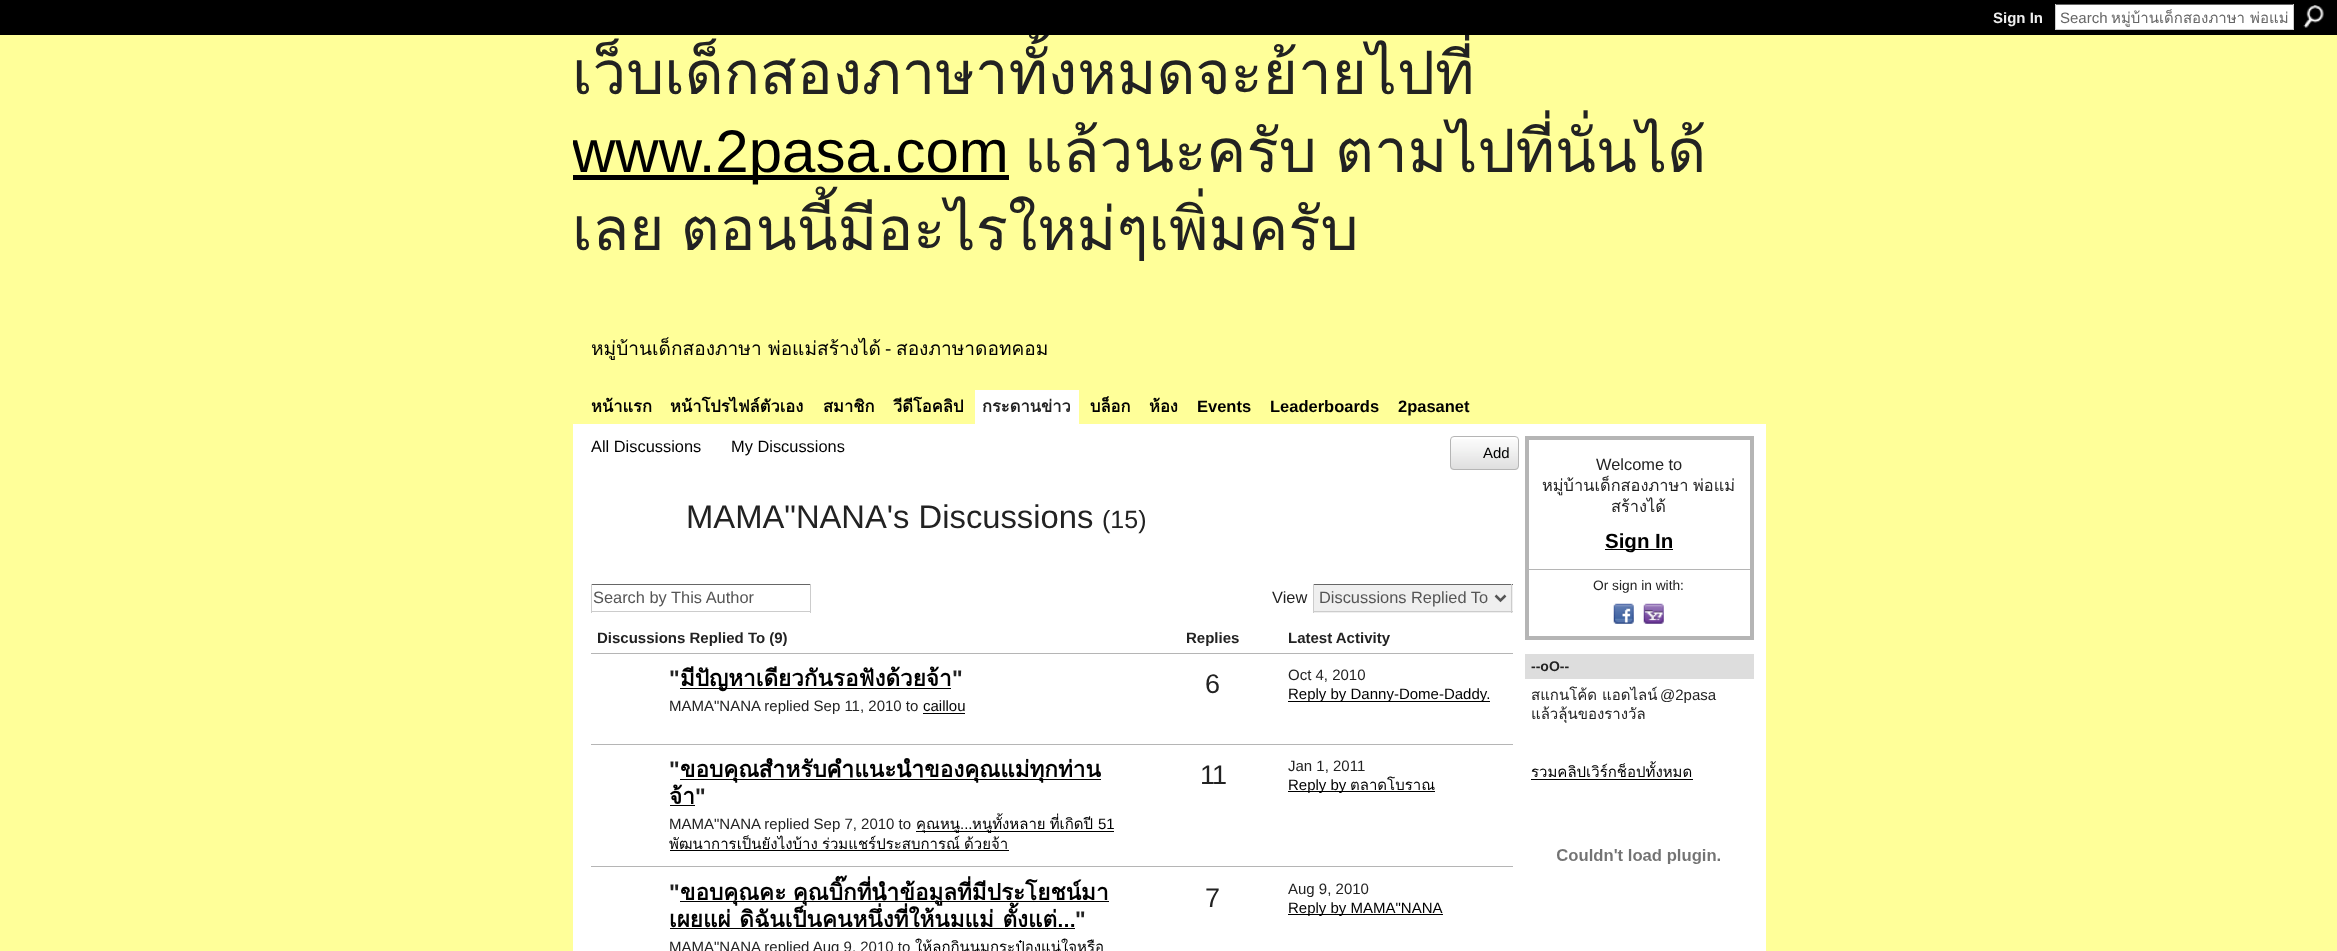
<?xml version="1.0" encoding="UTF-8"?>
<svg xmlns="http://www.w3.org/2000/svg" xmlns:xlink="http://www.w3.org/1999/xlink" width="2337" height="951">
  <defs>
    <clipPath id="clip1"><rect x="573" y="35" width="1193" height="240" /></clipPath>
  </defs>
  <rect width="100%" height="100%" fill="#ffff99" />
  <rect width="2337" height="35" fill="#000000" />
  <rect x="2056" y="5" width="237" height="24" fill="#ffffff" />
  <rect x="2055" y="4" width="239" height="1" fill="#666666" />
  <rect x="2293" y="4" width="1" height="26" fill="#cccccc" />
  <rect x="2055" y="29" width="239" height="1" fill="#cccccc" />
  <rect x="2055" y="4" width="1" height="26" fill="#cccccc" />
  <image x="2303" y="5" width="21" height="23" xlink:href="image1.png" />
  <rect x="573" y="175" width="436" height="5" fill="#000000" />
  <rect x="975" y="390" width="104" height="34" fill="#ffffff" />
  <rect x="573" y="424" width="1193" height="527" fill="#ffffff" />
  <image x="1450" y="439" width="69" height="31" xlink:href="image2.png" />
  <rect x="1450.5" y="436.5" width="68" height="33" rx="3.5" fill="none" stroke="#b5b5b5" />
  <rect x="591" y="584" width="220" height="1" fill="#666666" />
  <rect x="810" y="584" width="1" height="29" fill="#cccccc" />
  <rect x="591" y="611" width="220" height="1" fill="#cccccc" />
  <rect x="591" y="584" width="1" height="29" fill="#cccccc" />
  <rect x="1314" y="585" width="199" height="28" fill="#efefef" />
  <rect x="1313" y="584" width="200" height="1" fill="#666666" />
  <rect x="1511" y="584" width="1" height="29" fill="#cccccc" />
  <rect x="1313" y="611" width="200" height="1" fill="#cccccc" />
  <rect x="1313" y="584" width="1" height="29" fill="#cccccc" />
  <path d="M 1495.5 595.5 l 5 5 l 5 -5" fill="none" stroke="#555555" stroke-width="2.5" />
  <rect x="591" y="653" width="922" height="1" fill="#b5b5b5" />
  <rect x="680" y="688" width="271" height="1" fill="#000000" />
  <rect x="923" y="713" width="42" height="1" fill="#000000" />
  <rect x="591" y="744" width="922" height="1" fill="#b5b5b5" />
  <rect x="1288" y="701" width="202" height="1" fill="#000000" />
  <rect x="680" y="779" width="421" height="1" fill="#000000" />
  <rect x="670" y="805" width="25" height="1" fill="#000000" />
  <rect x="916" y="831" width="198" height="1" fill="#000000" />
  <rect x="670" y="850" width="339" height="1" fill="#000000" />
  <rect x="591" y="866" width="922" height="1" fill="#b5b5b5" />
  <rect x="1288" y="791" width="147" height="1" fill="#000000" />
  <rect x="680" y="901" width="429" height="1" fill="#000000" />
  <rect x="670" y="928" width="405" height="1" fill="#000000" />
  <rect x="1288" y="914" width="155" height="1" fill="#000000" />
  <rect x="1527" y="438" width="225" height="200" fill="none" stroke="#b5b5b5" stroke-width="4" />
  <rect x="1605" y="549" width="68" height="1" fill="#000000" />
  <rect x="1529" y="569" width="221" height="1" fill="#b5b5b5" />
  <image x="1613" y="603" width="21" height="21" xlink:href="image3.png" />
  <image x="1643" y="603" width="21" height="21" xlink:href="image4.png" />
  <rect x="1525" y="654" width="229" height="25" fill="#dddddd" />
  <rect x="1531" y="779" width="162" height="1" fill="#000000" />
  <image x="1557" y="849" width="163" height="15" xlink:href="image5.png" />
  <text x="1993" y="23" style="font-family: Liberation Sans; font-size: 15px; font-weight: bold; fill: #eeeeee">Sign In</text>
  <text x="2060" y="23" style="font-family: Liberation Sans; font-size: 15px; fill: #666666">Search</text>
  <text x="2111" y="23" style="font-family: Loma; font-size: 15px; fill: #666666">หมู่บ้านเด็กสองภาษา พ่อแม่</text>
  <g clip-path="url(#clip1)">
    <text x="572" y="94" style="font-family: Loma; font-size: 60px; fill: #222222">เว็บเด็กสองภาษาทั้งหมดจะย้ายไปที่</text>
    <text x="572" y="172" style="font-family: Liberation Sans; font-size: 60px; fill: #000000">www.2pasa.com</text>
  </g>
  <text x="1024" y="172" word-spacing="-2" style="font-family: Loma; font-size: 60px; fill: #222222">แล้วนะครับ ตามไปที่นั่นได้</text>
  <text x="572" y="250" word-spacing="-4" style="font-family: Loma; font-size: 60px; fill: #222222">เลย ตอนนี้มีอะไรใหม่ๆเพิ่มครับ</text>
  <text x="591" y="355" style="font-family: Loma; font-size: 19.1px; fill: #000000">หมู่บ้านเด็กสองภาษา พ่อแม่สร้างได้</text>
  <text x="885" y="355" style="font-family: Liberation Sans; font-size: 19.1px; fill: #000000">-</text>
  <text x="896" y="355" style="font-family: Loma; font-size: 19.1px; fill: #000000">สองภาษาดอทคอม</text>
  <text x="591" y="412" style="font-family: Loma; font-size: 16.5px; font-weight: bold; fill: #000000">หน้าแรก</text>
  <text x="670" y="412" style="font-family: Loma; font-size: 16.5px; font-weight: bold; fill: #000000">หน้าโปรไฟล์ตัวเอง</text>
  <text x="823" y="412" style="font-family: Loma; font-size: 16.5px; font-weight: bold; fill: #000000">สมาชิก</text>
  <text x="893" y="412" style="font-family: Loma; font-size: 16.5px; font-weight: bold; fill: #000000">วีดีโอคลิป</text>
  <text x="982" y="412" style="font-family: Loma; font-size: 16.5px; font-weight: bold; fill: #222222">กระดานข่าว</text>
  <text x="1090" y="412" style="font-family: Loma; font-size: 16.5px; font-weight: bold; fill: #000000">บล็อก</text>
  <text x="1149" y="412" style="font-family: Loma; font-size: 16.5px; font-weight: bold; fill: #000000">ห้อง</text>
  <text x="1197" y="412" style="font-family: Liberation Sans; font-size: 16.5px; font-weight: bold; fill: #000000">Events</text>
  <text x="1270" y="412" style="font-family: Liberation Sans; font-size: 16.5px; font-weight: bold; fill: #000000">Leaderboards</text>
  <text x="1398" y="412" style="font-family: Liberation Sans; font-size: 16.5px; font-weight: bold; fill: #000000">2pasanet</text>
  <text x="591" y="452" style="font-family: Liberation Sans; font-size: 16.4px; fill: #000000">All Discussions</text>
  <text x="731" y="452" style="font-family: Liberation Sans; font-size: 16.4px; fill: #000000">My Discussions</text>
  <text x="1483" y="458" style="font-family: Liberation Sans; font-size: 15px; fill: #000000">Add</text>
  <text x="686" y="528" style="font-family: Liberation Sans; font-size: 32.75px; fill: #222222">MAMA"NANA's Discussions</text>
  <text x="1102" y="528" style="font-family: Liberation Sans; font-size: 25px; fill: #222222">(15)</text>
  <text x="593" y="603" style="font-family: Liberation Sans; font-size: 16.4px; fill: #555555">Search by This Author</text>
  <text x="1272" y="603" style="font-family: Liberation Sans; font-size: 16.4px; fill: #222222">View</text>
  <text x="1319" y="603" style="font-family: Liberation Sans; font-size: 16.4px; fill: #555555">Discussions Replied To</text>
  <text x="597" y="643" style="font-family: Liberation Sans; font-size: 15px; font-weight: bold; fill: #222222">Discussions Replied To (9)</text>
  <text x="1186" y="643" style="font-family: Liberation Sans; font-size: 15px; font-weight: bold; fill: #222222">Replies</text>
  <text x="1288" y="643" style="font-family: Liberation Sans; font-size: 15px; font-weight: bold; fill: #222222">Latest Activity</text>
  <text x="669" y="686" style="font-family: Liberation Sans; font-size: 22.5px; font-weight: bold; fill: #222222">"</text>
  <text x="680" y="686" style="font-family: Loma; font-size: 22.5px; font-weight: bold; fill: #000000">มีปัญหาเดียวกันรอฟังด้วยจ้า</text>
  <text x="952" y="686" style="font-family: Liberation Sans; font-size: 22.5px; font-weight: bold; fill: #222222">"</text>
  <text x="669" y="711" style="font-family: Liberation Sans; font-size: 15px; fill: #222222">MAMA"NANA replied Sep 11, 2010 to</text>
  <text x="923" y="711" style="font-family: Liberation Sans; font-size: 15px; fill: #000000">caillou</text>
  <text x="1205" y="693" style="font-family: Liberation Sans; font-size: 27px; letter-spacing: -1px; fill: #222222">6</text>
  <text x="1288" y="680" style="font-family: Liberation Sans; font-size: 15px; fill: #222222">Oct 4, 2010</text>
  <text x="1288" y="699" style="font-family: Liberation Sans; font-size: 15px; fill: #000000">Reply by Danny-Dome-Daddy.</text>
  <text x="669" y="777" style="font-family: Liberation Sans; font-size: 22.5px; font-weight: bold; fill: #222222">"</text>
  <text x="680" y="777" style="font-family: Loma; font-size: 22.5px; font-weight: bold; fill: #000000">ขอบคุณสำหรับคำแนะนำของคุณแม่ทุกท่าน</text>
  <text x="669" y="804" style="font-family: Loma; font-size: 22.5px; font-weight: bold; fill: #000000">จ้า</text>
  <text x="695" y="804" style="font-family: Liberation Sans; font-size: 22.5px; font-weight: bold; fill: #222222">"</text>
  <text x="669" y="829" style="font-family: Liberation Sans; font-size: 15px; fill: #222222">MAMA"NANA replied Sep 7, 2010 to</text>
  <text x="916" y="829" style="font-family: Loma; font-size: 15px; fill: #000000">คุณหนู</text>
  <text x="960" y="829" style="font-family: Liberation Sans; font-size: 15px; fill: #000000">...</text>
  <text x="972" y="829" word-spacing="-1" style="font-family: Loma; font-size: 15px; fill: #000000">หนูทั้งหลาย ที่เกิดปี</text>
  <text x="1098" y="829" style="font-family: Liberation Sans; font-size: 15px; fill: #000000">51</text>
  <text x="669" y="849" word-spacing="-1" style="font-family: Loma; font-size: 15px; fill: #000000">พัฒนาการเป็นยังไงบ้าง ร่วมแชร์ประสบการณ์ ด้วยจ้า</text>
  <text x="1200" y="784" style="font-family: Liberation Sans; font-size: 27px; letter-spacing: -1px; fill: #222222">11</text>
  <text x="1288" y="771" style="font-family: Liberation Sans; font-size: 15px; fill: #222222">Jan 1, 2011</text>
  <text x="1288" y="790" style="font-family: Liberation Sans; font-size: 15px; fill: #000000">Reply by</text>
  <text x="1350" y="790" style="font-family: Loma; font-size: 15px; fill: #000000">ตลาดโบราณ</text>
  <text x="669" y="900" style="font-family: Liberation Sans; font-size: 22.5px; font-weight: bold; fill: #222222">"</text>
  <text x="680" y="900" word-spacing="-1" style="font-family: Loma; font-size: 22.5px; font-weight: bold; fill: #000000">ขอบคุณคะ คุณบิ๊กที่นำข้อมูลที่มีประโยชน์มา</text>
  <text x="669" y="927" word-spacing="1" style="font-family: Loma; font-size: 22.5px; font-weight: bold; fill: #000000">เผยแผ่ ดิฉันเป็นคนหนึ่งที่ให้นมแม่ ตั้งแต่…</text>
  <text x="1075" y="927" style="font-family: Liberation Sans; font-size: 22.5px; font-weight: bold; fill: #222222">"</text>
  <text x="669" y="952" style="font-family: Liberation Sans; font-size: 15px; fill: #222222">MAMA"NANA replied Aug 9, 2010 to</text>
  <text x="915" y="952" style="font-family: Loma; font-size: 15px; fill: #000000">ให้ลูกกินนมกระป๋องแน่ใจหรือ</text>
  <text x="1205" y="907" style="font-family: Liberation Sans; font-size: 27px; letter-spacing: -1px; fill: #222222">7</text>
  <text x="1288" y="894" style="font-family: Liberation Sans; font-size: 15px; fill: #222222">Aug 9, 2010</text>
  <text x="1288" y="913" style="font-family: Liberation Sans; font-size: 15px; fill: #000000">Reply by MAMA"NANA</text>
  <text x="1596" y="470" style="font-family: Liberation Sans; font-size: 16.4px; fill: #222222">Welcome to</text>
  <text x="1542" y="491" word-spacing="-1" style="font-family: Loma; font-size: 16.4px; fill: #222222">หมู่บ้านเด็กสองภาษา พ่อแม่</text>
  <text x="1611" y="512" style="font-family: Loma; font-size: 16.4px; fill: #222222">สร้างได้</text>
  <text x="1605" y="548" style="font-family: Liberation Sans; font-size: 20.5px; font-weight: bold; fill: #000000">Sign In</text>
  <text x="1593" y="590" style="font-family: Liberation Sans; font-size: 13.75px; fill: #222222">Or sign in with:</text>
  <text x="1531" y="671" style="font-family: Liberation Sans; font-size: 14px; font-weight: bold; fill: #222222">--oO--</text>
  <text x="1531" y="700" style="font-family: Loma; font-size: 15px; fill: #222222">สแกนโค้ด แอดไลน์</text>
  <text x="1660" y="700" style="font-family: Liberation Sans; font-size: 15px; fill: #222222">@2pasa</text>
  <text x="1531" y="719" style="font-family: Loma; font-size: 15px; fill: #222222">แล้วลุ้นของรางวัล</text>
  <text x="1531" y="777" style="font-family: Loma; font-size: 15px; fill: #000000">รวมคลิปเวิร์กช็อปทั้งหมด</text>
</svg>
